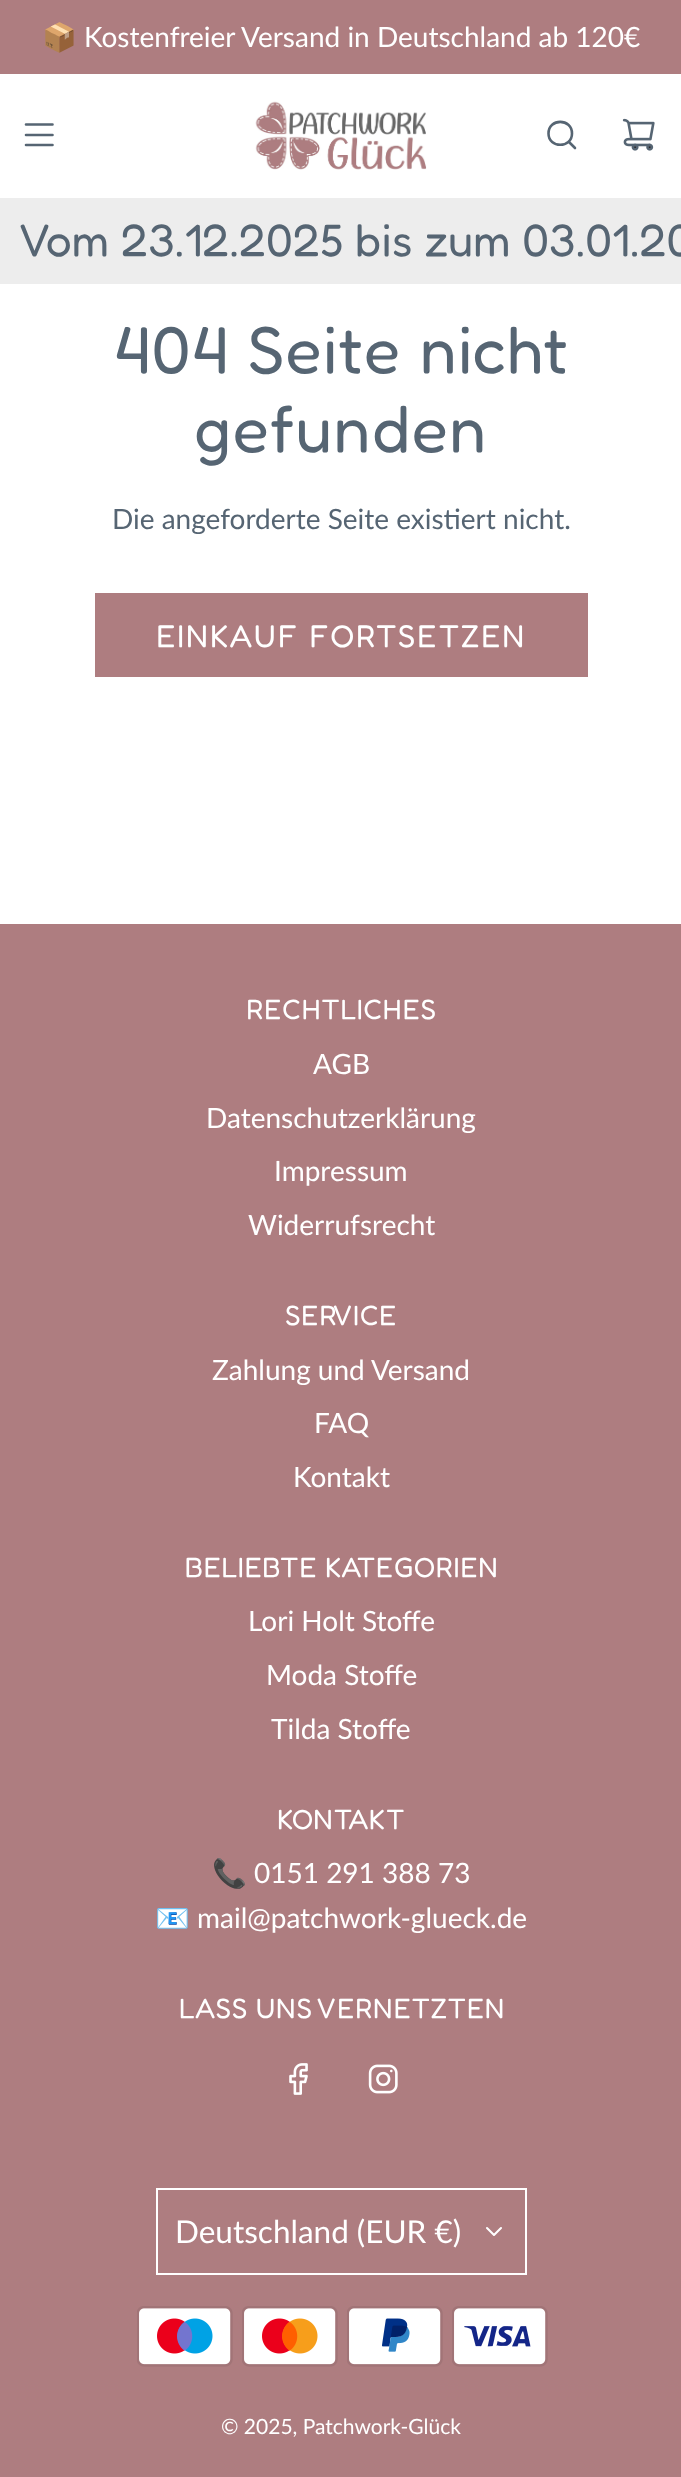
<?xml version="1.0" encoding="UTF-8"?>
<svg xmlns="http://www.w3.org/2000/svg" xmlns:xlink="http://www.w3.org/1999/xlink" width="681" height="2477">
  <rect width="100%" height="100%" fill="#ffffff" />
  <rect width="681" height="74" fill="#ae7d80" />
  <path d="M 26 124.5 h 26.5 m -26.5 10.5 h 26.5 m -26.5 10 h 26.5" fill="none" stroke="#566573" stroke-width="2.6" stroke-linecap="round" stroke-linejoin="round" />
  <image x="255" y="101" width="172" height="69" xlink:href="image1.png" />
  <path d="M 569 142 l 6 6 m -26.5 -14.5 c 0 15 23.5 15 23.5 0 c 0 -15.5 -23.5 -15.5 -23.5 0 z" fill="none" stroke="#566573" stroke-width="2.6" stroke-linecap="round" stroke-linejoin="round" />
  <image x="622" y="118" width="33" height="33" xlink:href="image2.png" />
  <rect y="198" width="681" height="86" fill="#ededed" />
  <rect x="95" y="593" width="493" height="84" fill="#ae7d80" />
  <rect y="924" width="681" height="1553" fill="#ae7d80" />
  <image x="289" y="2063" width="19" height="32" xlink:href="image3.png" />
  <image x="368" y="2064" width="30" height="30" xlink:href="image4.png" />
  <rect x="157" y="2189" width="369" height="85" fill="none" stroke="#ffffff" stroke-width="2" />
  <path d="M 487 2228 l 7 7 l 7 -7" fill="none" stroke="#ffffff" stroke-width="2.1" stroke-linecap="round" stroke-linejoin="round" />
  <image x="137" y="2306" width="96" height="61" xlink:href="image5.png" />
  <image x="242" y="2306" width="96" height="61" xlink:href="image6.png" />
  <image x="347" y="2306" width="96" height="61" xlink:href="image7.png" />
  <image x="452" y="2306" width="96" height="61" xlink:href="image8.png" />
  <text x="42" y="47" style="font-family: Noto Color Emoji; font-size: 28px; fill: #ffffff">📦</text>
  <text x="84" y="47" style="font-family: Lato; font-size: 28px; fill: #ffffff">Kostenfreier Versand in Deutschland ab 120€</text>
  <text x="18" y="256" style="font-family: Fredoka; font-size: 45.5px; fill: #566573">Vom 23.12.2025 bis zum 03.01.20</text>
  <text x="114" y="373" style="font-family: Fredoka; font-size: 66.5px; letter-spacing: 1.3px; fill: #566573">404 Seite nicht</text>
  <text x="194" y="452" style="font-family: Fredoka; font-size: 66.5px; letter-spacing: 1.3px; fill: #566573">gefunden</text>
  <text x="112" y="529" style="font-family: Lato; font-size: 28px; fill: #566573">Die angeforderte Seite existiert nicht.</text>
  <text x="156" y="647" style="font-family: Fredoka; font-size: 31.5px; letter-spacing: 1.75px; fill: #ffffff">EINKAUF FORTSETZEN</text>
  <text x="246" y="1019" style="font-family: Fredoka; font-size: 28px; letter-spacing: 0.6px; fill: #ffffff">RECHTLICHES</text>
  <text x="313" y="1074" style="font-family: Lato; font-size: 28px; fill: #ffffff">AGB</text>
  <text x="206" y="1128" style="font-family: Lato; font-size: 28px; fill: #ffffff">Datenschutzerklärung</text>
  <text x="274" y="1181" style="font-family: Lato; font-size: 28px; fill: #ffffff">Impressum</text>
  <text x="248" y="1235" style="font-family: Lato; font-size: 28px; fill: #ffffff">Widerrufsrecht</text>
  <text x="285" y="1325" style="font-family: Fredoka; font-size: 28px; letter-spacing: 0.6px; fill: #ffffff">SERVICE</text>
  <text x="212" y="1380" style="font-family: Lato; font-size: 28px; fill: #ffffff">Zahlung und Versand</text>
  <text x="314" y="1433" style="font-family: Lato; font-size: 28px; fill: #ffffff">FAQ</text>
  <text x="293" y="1487" style="font-family: Lato; font-size: 28px; fill: #ffffff">Kontakt</text>
  <text x="185" y="1577" style="font-family: Fredoka; font-size: 28px; letter-spacing: 0.6px; fill: #ffffff">BELIEBTE KATEGORIEN</text>
  <text x="248" y="1631" style="font-family: Lato; font-size: 28px; fill: #ffffff">Lori Holt Stoffe</text>
  <text x="266" y="1685" style="font-family: Lato; font-size: 28px; fill: #ffffff">Moda Stoffe</text>
  <text x="271" y="1739" style="font-family: Lato; font-size: 28px; fill: #ffffff">Tilda Stoffe</text>
  <text x="277" y="1829" style="font-family: Fredoka; font-size: 28px; letter-spacing: 0.6px; fill: #ffffff">KONTAKT</text>
  <text x="212" y="1883" style="font-family: Noto Color Emoji; font-size: 28px; fill: #ffffff">📞</text>
  <text x="254" y="1883" style="font-family: Lato; font-size: 28px; fill: #ffffff">0151 291 388 73</text>
  <text x="155" y="1928" style="font-family: Noto Color Emoji; font-size: 28px; fill: #ffffff">📧</text>
  <text x="197" y="1928" style="font-family: Lato; font-size: 28px; fill: #ffffff">mail@patchwork-glueck.de</text>
  <text x="179" y="2018" style="font-family: Fredoka; font-size: 28px; letter-spacing: 0.6px; fill: #ffffff">LASS UNS VERNETZTEN</text>
  <text x="175" y="2243" style="font-family: Lato; font-size: 31.5px; fill: #ffffff">Deutschland (EUR €)</text>
  <text x="221" y="2434" style="font-family: Lato; font-size: 21px; fill: #ffffff">© 2025, Patchwork-Glück</text>
</svg>
